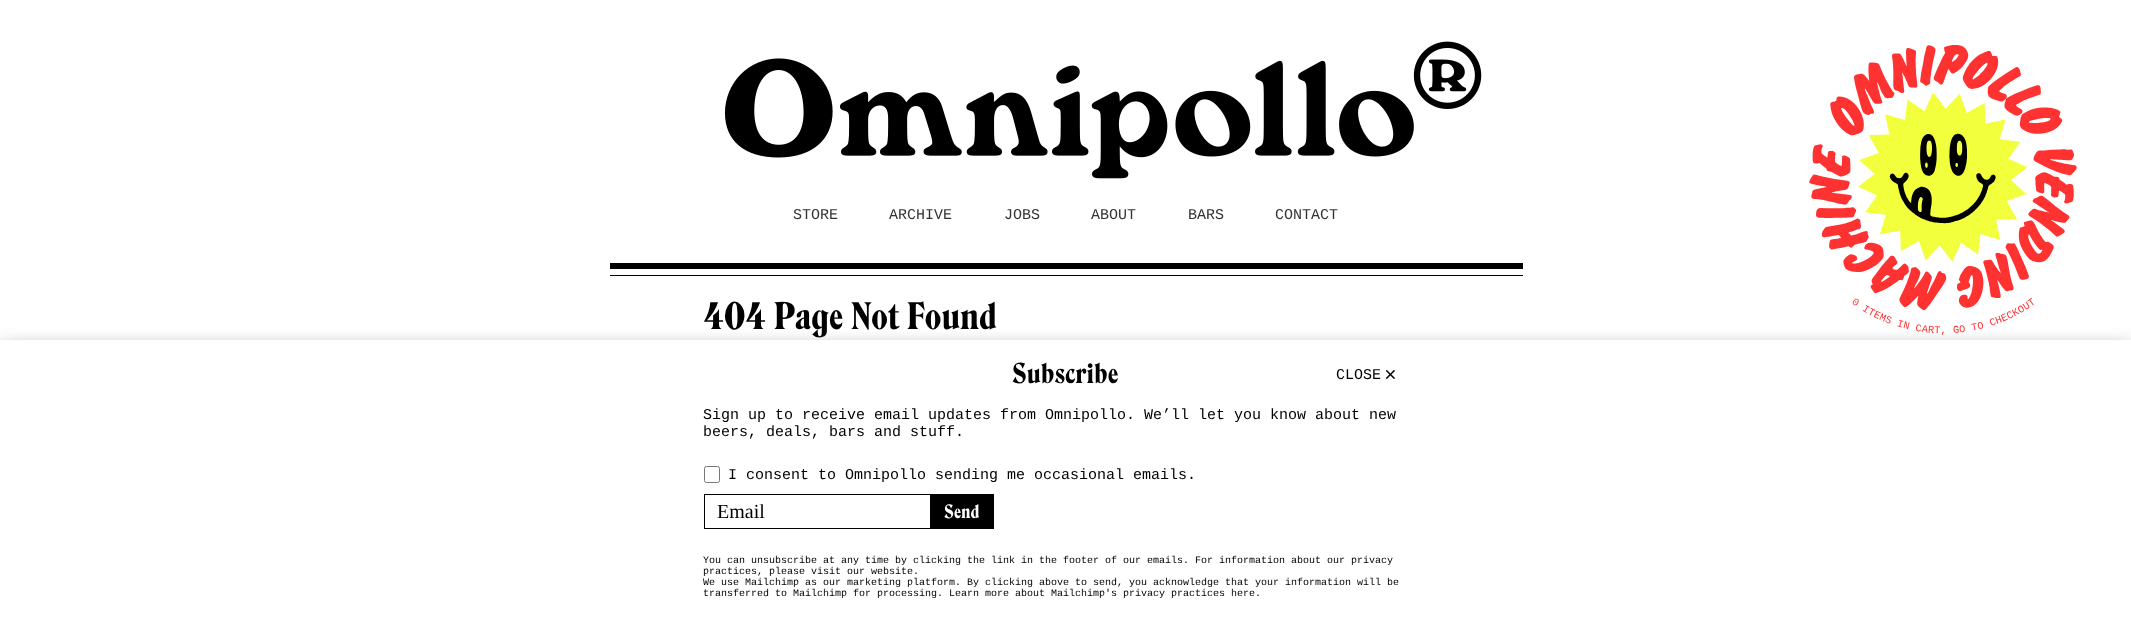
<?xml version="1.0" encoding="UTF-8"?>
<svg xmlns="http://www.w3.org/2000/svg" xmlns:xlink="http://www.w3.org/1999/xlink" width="2131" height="617">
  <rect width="100%" height="100%" fill="#ffffff" />
  <image x="724" y="41" width="758" height="138" xlink:href="image1.png" />
  <image x="1809" y="45" width="268" height="290" xlink:href="image2.png" />
  <rect x="610" y="263" width="913" height="6" fill="#000000" />
  <rect x="610" y="275" width="913" height="1" fill="#000000" />
  <rect x="1" y="349" width="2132" height="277" fill="#000000" fill-opacity="0.5" filter="blur(9.5px)" />
  <rect y="340" width="2131" height="277" fill="#ffffff" />
  <image x="1386" y="370" width="9" height="9" xlink:href="image3.png" />
  <rect x="704.5" y="466.5" width="15" height="16" rx="2" fill="none" stroke="#767676" />
  <rect x="704.5" y="494.5" width="226" height="34" fill="none" stroke="#000000" />
  <rect x="931" y="494" width="63" height="35" fill="#000000" />
  <text x="793" y="219" style="font-family: Liberation Mono; font-size: 15px; fill: #333333">STORE</text>
  <text x="889" y="219" style="font-family: Liberation Mono; font-size: 15px; fill: #333333">ARCHIVE</text>
  <text x="1004" y="219" style="font-family: Liberation Mono; font-size: 15px; fill: #333333">JOBS</text>
  <text x="1091" y="219" style="font-family: Liberation Mono; font-size: 15px; fill: #333333">ABOUT</text>
  <text x="1188" y="219" style="font-family: Liberation Mono; font-size: 15px; fill: #333333">BARS</text>
  <text x="1275" y="219" style="font-family: Liberation Mono; font-size: 15px; fill: #333333">CONTACT</text>
  <text x="703" y="329" word-spacing="-4" style="font-family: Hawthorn; font-size: 40px; fill: #000000">404 Page Not Found</text>
  <text x="1012" y="383" style="font-family: Hawthorn; font-size: 30px; fill: #000000">Subscribe</text>
  <text x="1336" y="379" style="font-family: Liberation Mono; font-size: 15px; fill: #000000">CLOSE</text>
  <text x="703" y="419" style="font-family: Liberation Mono; font-size: 15px; fill: #000000">Sign up to receive email updates from Omnipollo. We’ll let you know about new</text>
  <text x="703" y="436" style="font-family: Liberation Mono; font-size: 15px; fill: #000000">beers, deals, bars and stuff.</text>
  <text x="728" y="479" style="font-family: Liberation Mono; font-size: 15px; fill: #000000">I consent to Omnipollo sending me occasional emails.</text>
  <text x="717" y="518" style="font-family: Liberation Serif; font-size: 20px; fill: #000000">Email</text>
  <text x="944" y="518" style="font-family: Hawthorn; font-size: 20px; fill: #ffffff">Send</text>
  <text x="703" y="563" style="font-family: Liberation Mono; font-size: 10px; fill: #000000">You can unsubscribe at any time by clicking the link in the footer of our emails. For information about our privacy</text>
  <text x="703" y="574" style="font-family: Liberation Mono; font-size: 10px; fill: #000000">practices, please visit our website.</text>
  <text x="703" y="585" style="font-family: Liberation Mono; font-size: 10px; fill: #000000">We use Mailchimp as our marketing platform. By clicking above to send, you acknowledge that your information will be</text>
  <text x="703" y="596" style="font-family: Liberation Mono; font-size: 10px; fill: #000000">transferred to Mailchimp for processing. Learn more about Mailchimp's privacy practices here.</text>
</svg>
